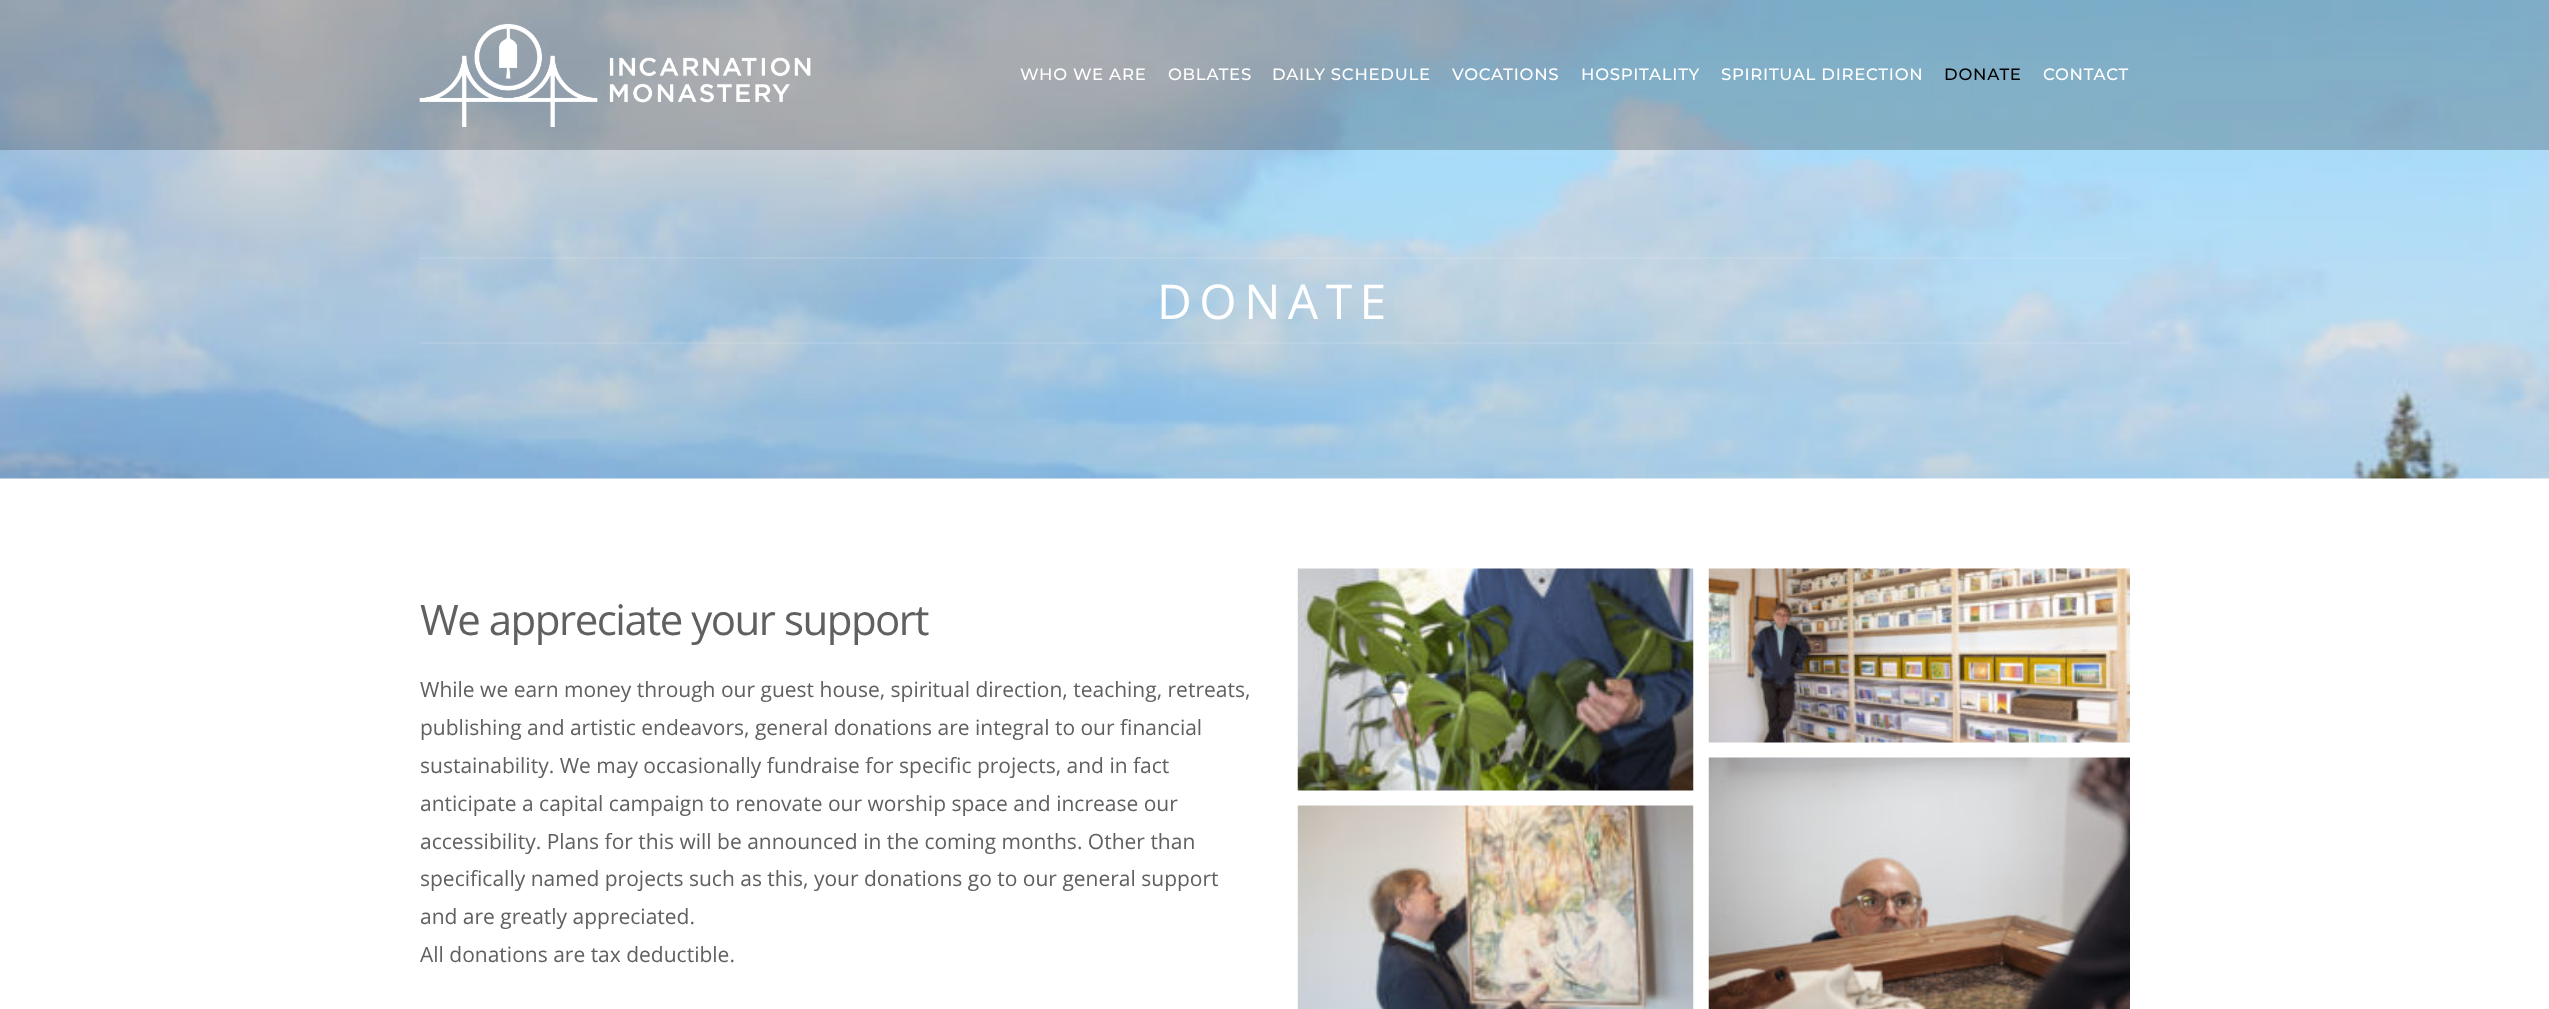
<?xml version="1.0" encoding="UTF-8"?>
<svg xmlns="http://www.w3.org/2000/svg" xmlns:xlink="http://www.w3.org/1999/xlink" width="2549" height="1009">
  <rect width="100%" height="100%" fill="#ffffff" />
  <image x="0" y="0" width="2549" height="479" xlink:href="image2.png" />
  <rect width="2549" height="150" fill="#000000" fill-opacity="0.2" />
  <image x="419" y="23" width="392" height="104" xlink:href="image1.png" />
  <rect x="420" y="257" width="1710" height="2" fill="#ffffff" fill-opacity="0.1" />
  <rect x="420" y="342" width="1710" height="2" fill="#ffffff" fill-opacity="0.1" />
  <image x="1297" y="568" width="397" height="223" xlink:href="image3.png" />
  <image x="1708" y="568" width="422" height="175" xlink:href="image4.png" />
  <image x="1297" y="805" width="397" height="204" xlink:href="image5.png" />
  <image x="1708" y="757" width="422" height="252" xlink:href="image6.png" />
  <text x="1020" y="80" style="font-family: Montserrat; font-size: 16.5px; font-weight: 100; letter-spacing: 0.75px; fill: #ffffff">WHO WE ARE</text>
  <text x="1168" y="80" style="font-family: Montserrat; font-size: 16.5px; font-weight: 100; letter-spacing: 0.75px; fill: #ffffff">OBLATES</text>
  <text x="1272" y="80" style="font-family: Montserrat; font-size: 16.5px; font-weight: 100; letter-spacing: 0.75px; fill: #ffffff">DAILY SCHEDULE</text>
  <text x="1452" y="80" style="font-family: Montserrat; font-size: 16.5px; font-weight: 100; letter-spacing: 0.75px; fill: #ffffff">VOCATIONS</text>
  <text x="1581" y="80" style="font-family: Montserrat; font-size: 16.5px; font-weight: 100; letter-spacing: 0.75px; fill: #ffffff">HOSPITALITY</text>
  <text x="1721" y="80" style="font-family: Montserrat; font-size: 16.5px; font-weight: 100; letter-spacing: 0.75px; fill: #ffffff">SPIRITUAL DIRECTION</text>
  <text x="1944" y="80" style="font-family: Montserrat; font-size: 16.5px; font-weight: 100; letter-spacing: 0.75px; fill: #000000">DONATE</text>
  <text x="2043" y="80" style="font-family: Montserrat; font-size: 16.5px; font-weight: 100; letter-spacing: 0.75px; fill: #ffffff">CONTACT</text>
  <text x="1157" y="319" style="font-family: Open Sans; font-size: 48px; letter-spacing: 7.5px; fill: #ffffff">DONATE</text>
  <text x="420" y="635" style="font-family: Open Sans; font-size: 42px; letter-spacing: -1.5px; fill: #606060">We appreciate your support</text>
  <text x="420" y="697" style="font-family: Open Sans; font-size: 21px; fill: #606060">While we earn money through our guest house, spiritual direction, teaching, retreats,</text>
  <text x="420" y="735" style="font-family: Open Sans; font-size: 21px; fill: #606060">publishing and artistic endeavors, general donations are integral to our financial</text>
  <text x="420" y="773" style="font-family: Open Sans; font-size: 21px; fill: #606060">sustainability. We may occasionally fundraise for specific projects, and in fact</text>
  <text x="420" y="811" style="font-family: Open Sans; font-size: 21px; fill: #606060">anticipate a capital campaign to renovate our worship space and increase our</text>
  <text x="420" y="849" style="font-family: Open Sans; font-size: 21px; fill: #606060">accessibility. Plans for this will be announced in the coming months. Other than</text>
  <text x="420" y="886" style="font-family: Open Sans; font-size: 21px; fill: #606060">specifically named projects such as this, your donations go to our general support</text>
  <text x="420" y="924" style="font-family: Open Sans; font-size: 21px; fill: #606060">and are greatly appreciated.</text>
  <text x="420" y="962" style="font-family: Open Sans; font-size: 21px; fill: #606060">All donations are tax deductible.</text>
</svg>
